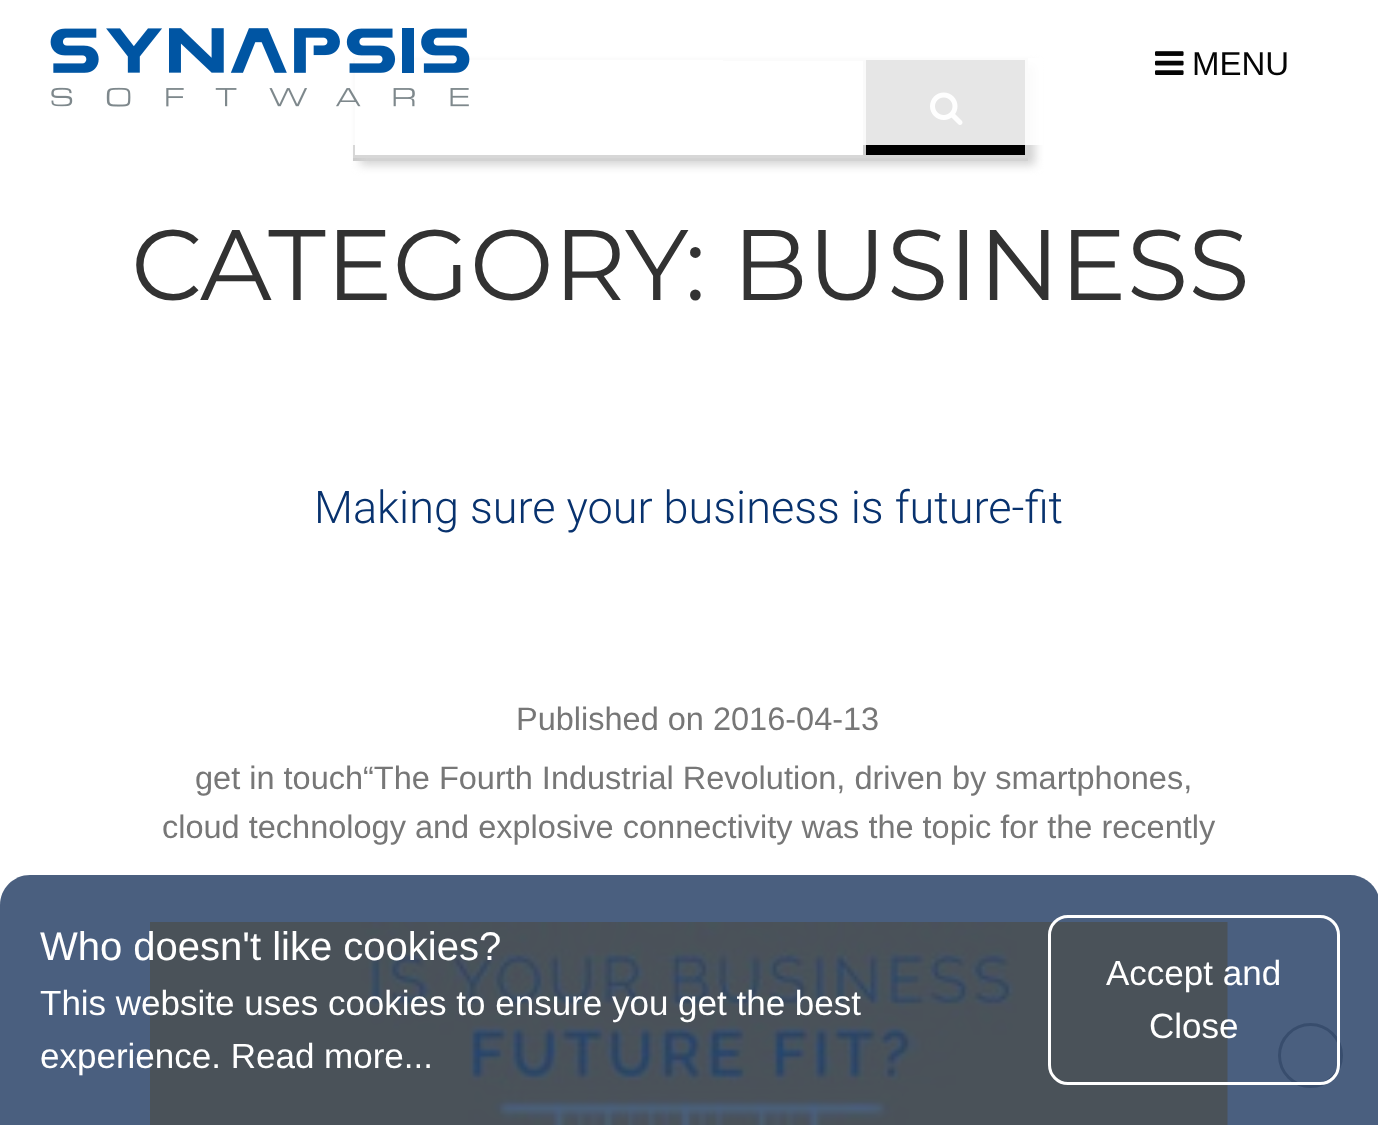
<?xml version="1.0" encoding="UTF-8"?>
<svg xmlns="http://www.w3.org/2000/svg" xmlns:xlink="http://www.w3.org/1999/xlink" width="1378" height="1125">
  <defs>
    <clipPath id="clip1"><path d="M 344 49 h 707 v 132 h -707 z m 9 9 h 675 v 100 h -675 z" clip-rule="evenodd" /></clipPath>
  </defs>
  <rect width="100%" height="100%" fill="#ffffff" />
  <rect x="353" y="158" width="675" height="3" fill="#cccccc" />
  <g clip-path="url(#clip1)">
    <rect x="360" y="65" width="675" height="100" fill="#d3d3d3" filter="blur(5px)" />
  </g>
  <rect x="354.5" y="59.5" width="672" height="97" fill="none" stroke="#d7d7d7" stroke-width="3" />
  <rect x="355" y="60" width="368" height="95" fill="#ffffff" />
  <rect x="866" y="60" width="159" height="95" fill="#000000" />
  <rect x="863" y="60" width="3" height="95" fill="#cccccc" />
  <image x="930" y="92" width="33" height="33" xlink:href="image3.png" />
  <rect x="353" y="58" width="690" height="87" fill="#ffffff" fill-opacity="0.9" />
  <image x="50" y="28" width="420" height="79" xlink:href="image1.png" />
  <image x="1155" y="51" width="29" height="24" xlink:href="image2.png" />
  <image x="150" y="922" width="1078" height="203" xlink:href="image4.png" />
  <circle cx="1310.5" cy="1055.5" r="31" fill="none" stroke="#868686" stroke-width="3" />
  <path d="M 30 875 h 1320 c 16.5 0 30 13.5 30 30 v 220 h -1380 v -220 c 0 -16.5 13.5 -30 30 -30 z" fill="#2a4368" fill-opacity="0.85" />
  <rect x="1049.5" y="916.5" width="289" height="167" rx="18.5" fill="none" stroke="#ffffff" stroke-width="3" />
  <text x="1192" y="75" style="font-family: Liberation Sans; font-size: 33px; fill: #050505">MENU</text>
  <text x="131" y="300" style="font-family: Montserrat; font-size: 100px; fill: #323232">CATEGORY: BUSINESS</text>
  <text x="314" y="523" style="font-family: Roboto; font-size: 45px; font-weight: 300; fill: #08326e">Making sure your business is future-fit</text>
  <text x="516" y="730" style="font-family: Liberation Sans; font-size: 32.5px; fill: #777777">Published on 2016-04-13</text>
  <text x="195" y="789" style="font-family: Liberation Sans; font-size: 32.5px; fill: #777777">get in touch“The Fourth Industrial Revolution, driven by smartphones,</text>
  <text x="162" y="838" style="font-family: Liberation Sans; font-size: 32.5px; fill: #777777">cloud technology and explosive connectivity was the topic for the recently</text>
  <text x="40" y="960" style="font-family: Liberation Sans; font-size: 40px; fill: #ffffff">Who doesn't like cookies?</text>
  <text x="40" y="1015" style="font-family: Liberation Sans; font-size: 35px; fill: #ffffff">This website uses cookies to ensure you get the best</text>
  <text x="40" y="1068" style="font-family: Liberation Sans; font-size: 35px; fill: #ffffff">experience. Read more...</text>
  <text x="1106" y="985" style="font-family: Liberation Sans; font-size: 35px; fill: #ffffff">Accept and</text>
  <text x="1149" y="1038" style="font-family: Liberation Sans; font-size: 35px; fill: #ffffff">Close</text>
</svg>
